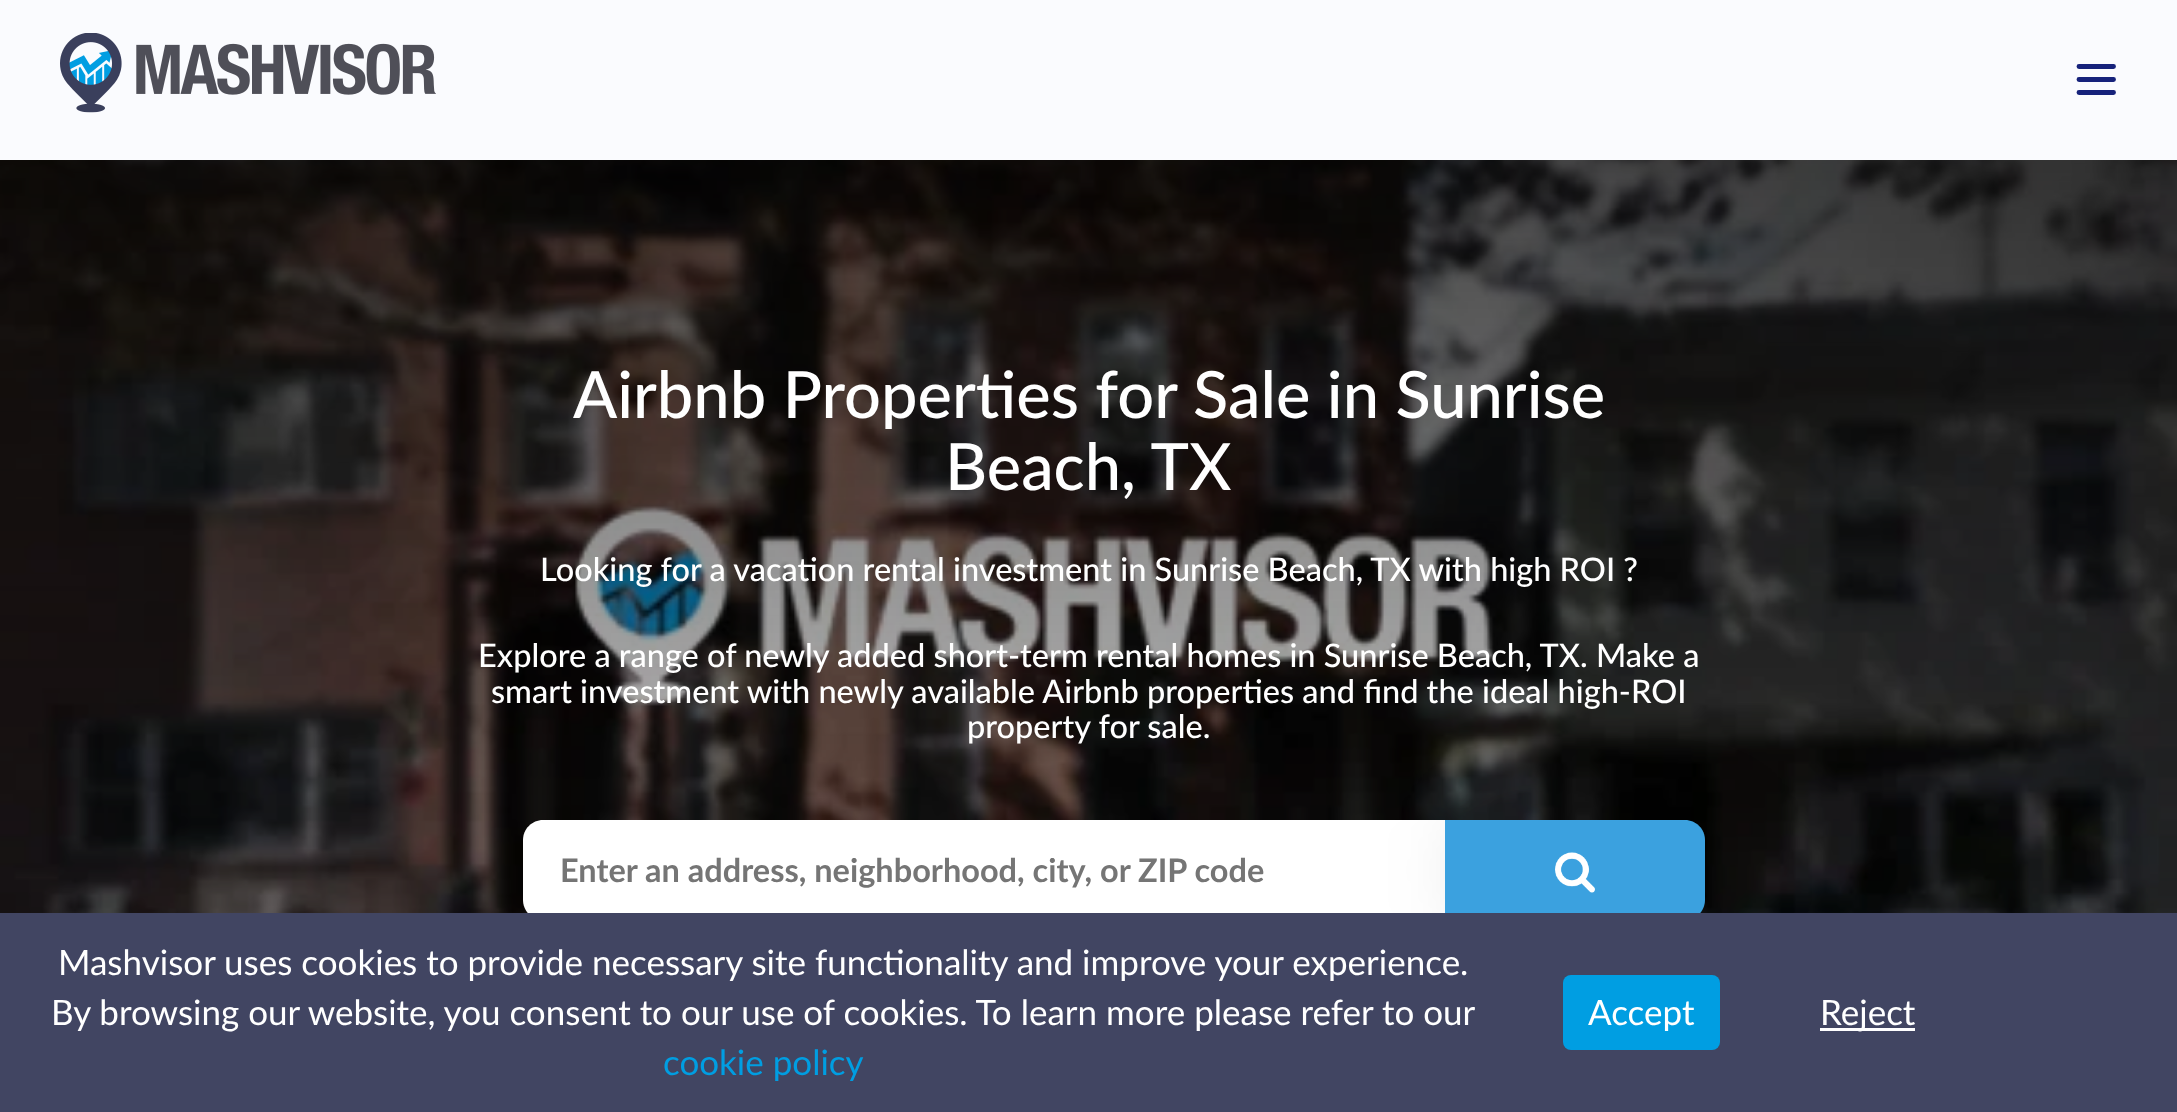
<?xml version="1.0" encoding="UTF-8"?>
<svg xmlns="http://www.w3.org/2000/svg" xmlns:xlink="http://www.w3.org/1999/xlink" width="2177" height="1112">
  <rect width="100%" height="100%" fill="#ffffff" />
  <rect width="2177" height="160" fill="#fafbfe" />
  <image x="60" y="33" width="376" height="80" xlink:href="image1.png" />
  <path d="M 2079 66.5 h 34.5 m -34.5 26 h 34.5 z m 0 -13 h 34.5 z" fill="none" stroke="#16227b" stroke-width="4.9" stroke-linecap="round" stroke-linejoin="round" />
  <image x="0" y="160" width="2177" height="753" xlink:href="image2.png" />
  <path d="M 543 820 h 965 v 100 h -965 c -11 0 -20 -9 -20 -20 v -60 c 0 -11 9 -20 20 -20 z" fill="#ffffff" />
  <rect x="1470" y="820" width="260" height="100" rx="20" fill="#000000" fill-opacity="0.15" filter="blur(41px)" />
  <path d="M 1445 820 h 240 c 11 0 20 9 20 20 v 60 c 0 11 -9 20 -20 20 h -240 z" fill="#3ba1df" />
  <image x="1555" y="852" width="40" height="41" xlink:href="image3.png" />
  <rect y="913" width="2177" height="199" fill="#414562" />
  <rect x="1563" y="975" width="157" height="75" rx="8" fill="#009ee2" />
  <rect x="1820" y="1028" width="95" height="3" fill="#ffffff" />
  <text x="573" y="418" style="font-family: Lato; font-size: 65px; font-weight: 500; fill: #ffffff">Airbnb Properties for Sale in Sunrise</text>
  <text x="945" y="490" style="font-family: Lato; font-size: 65px; font-weight: 500; fill: #ffffff">Beach, TX</text>
  <text x="540" y="581" style="font-family: Lato; font-size: 32.5px; font-weight: 500; fill: #ffffff">Looking for a vacation rental investment in Sunrise Beach, TX with high ROI ?</text>
  <text x="478" y="667" style="font-family: Lato; font-size: 32.5px; font-weight: 500; fill: #ffffff">Explore a range of newly added short-term rental homes in Sunrise Beach, TX. Make a</text>
  <text x="491" y="703" style="font-family: Lato; font-size: 32.5px; font-weight: 500; fill: #ffffff">smart investment with newly available Airbnb properties and find the ideal high-ROI</text>
  <text x="967" y="738" style="font-family: Lato; font-size: 32.5px; font-weight: 500; fill: #ffffff">property for sale.</text>
  <text x="560" y="882" style="font-family: Lato; font-size: 32.5px; font-weight: bold; fill: #757575">Enter an address, neighborhood, city, or ZIP code</text>
  <text x="58" y="975" style="font-family: Lato; font-size: 35px; fill: #ffffff">Mashvisor uses cookies to provide necessary site functionality and improve your experience.</text>
  <text x="51" y="1025" style="font-family: Lato; font-size: 35px; fill: #ffffff">By browsing our website, you consent to our use of cookies. To learn more please refer to our</text>
  <text x="663" y="1075" style="font-family: Lato; font-size: 35px; fill: #009ee2">cookie policy</text>
  <text x="1588" y="1025" style="font-family: Lato; font-size: 35px; fill: #ffffff">Accept</text>
  <text x="1820" y="1025" style="font-family: Lato; font-size: 35px; fill: #ffffff">Reject</text>
</svg>
